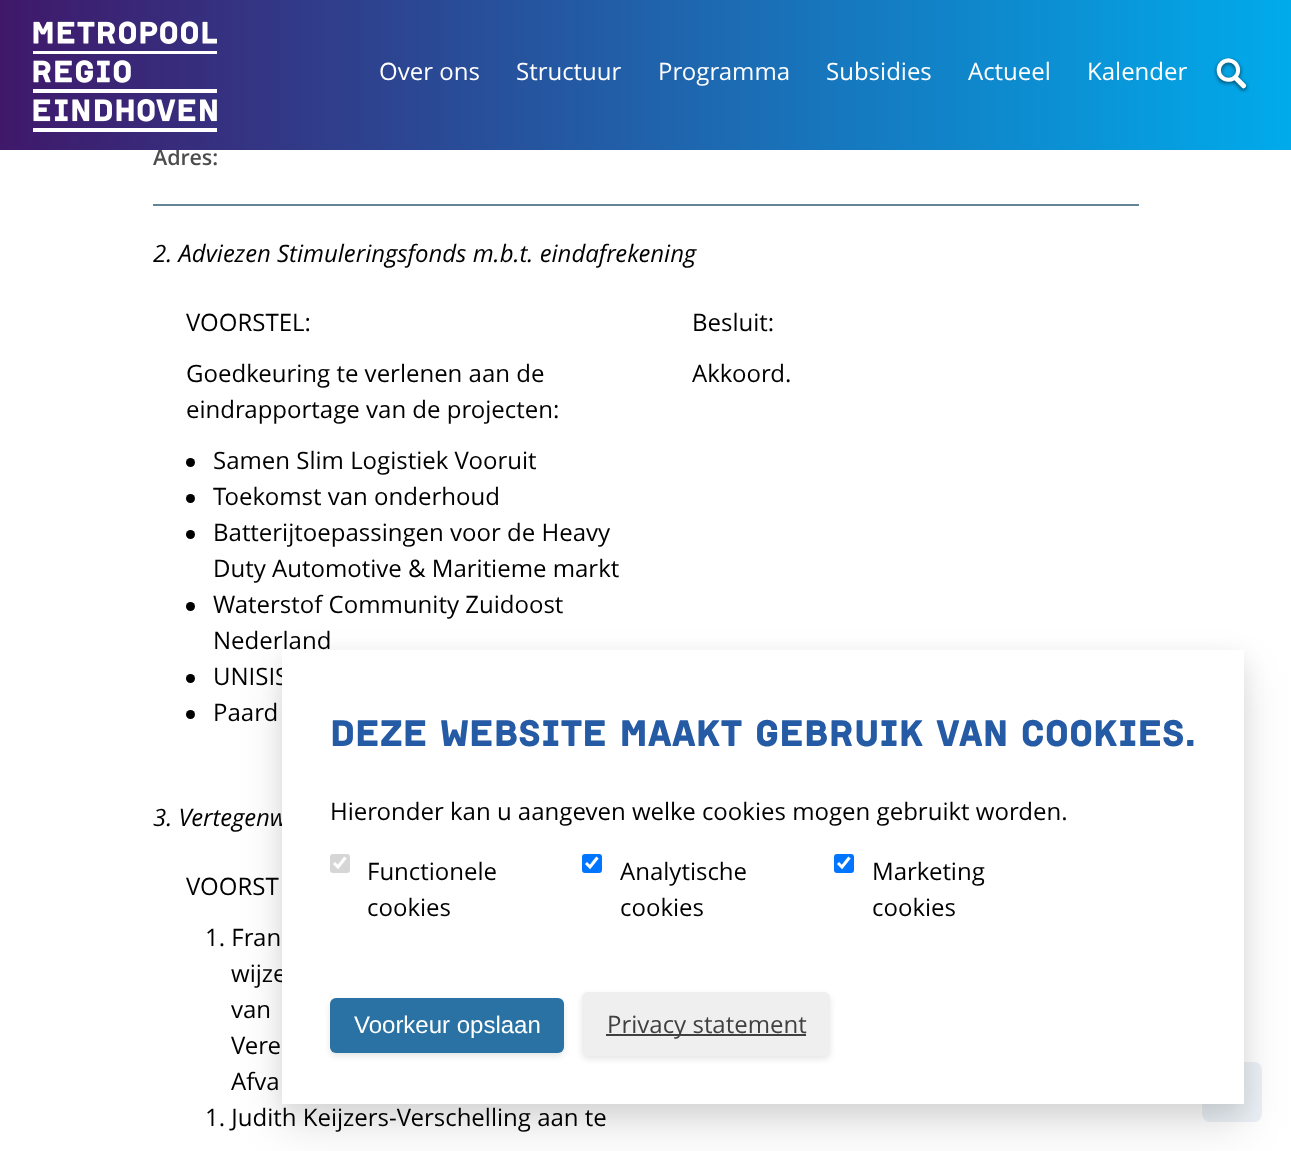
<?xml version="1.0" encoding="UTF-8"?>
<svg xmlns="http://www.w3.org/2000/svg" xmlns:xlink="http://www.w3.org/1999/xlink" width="1291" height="1151">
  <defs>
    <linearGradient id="g1" gradientUnits="userSpaceOnUse" x1="0" y1="75" x2="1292" y2="75"><stop offset="0" stop-color="#40186a" /><stop offset="1" stop-color="#00abeb" /></linearGradient>
  </defs>
  <rect width="100%" height="100%" fill="#ffffff" />
  <rect x="153" y="204" width="986" height="2" fill="#648596" />
  <circle cx="190.5" cy="462.5" r="4.5" fill="#000000" />
  <circle cx="190.5" cy="498.5" r="4.5" fill="#000000" />
  <circle cx="190.5" cy="534.5" r="4.5" fill="#000000" />
  <circle cx="190.5" cy="606.5" r="4.5" fill="#000000" />
  <circle cx="190.5" cy="678.5" r="4.5" fill="#000000" />
  <circle cx="190.5" cy="714.5" r="4.5" fill="#000000" />
  <rect x="1202" y="1062" width="60" height="60" rx="8" fill="#ebf1f6" />
  <rect x="282" y="657" width="962" height="455" fill="#000000" fill-opacity="0.08" filter="blur(11px)" />
  <rect x="282" y="672" width="962" height="455" fill="#000000" fill-opacity="0.11" filter="blur(22.5px)" />
  <text x="153" y="165" style="font-family: Open Sans; font-size: 21.5px; font-weight: 600; fill: #4d4d4d">Adres:</text>
  <rect width="1291" height="150" fill="url(#g1)" />
  <image x="33" y="21" width="184" height="111" xlink:href="image1.png" />
  <image x="1213" y="57" width="36" height="36" xlink:href="image2.png" />
  <text x="1087" y="80" style="font-family: Open Sans; font-size: 24px; fill: #ffffff">Kalender</text>
  <text x="968" y="80" style="font-family: Open Sans; font-size: 24px; fill: #ffffff">Actueel</text>
  <text x="826" y="80" style="font-family: Open Sans; font-size: 24px; fill: #ffffff">Subsidies</text>
  <text x="658" y="80" style="font-family: Open Sans; font-size: 24px; fill: #ffffff">Programma</text>
  <text x="516" y="80" style="font-family: Open Sans; font-size: 24px; fill: #ffffff">Structuur</text>
  <text x="379" y="80" style="font-family: Open Sans; font-size: 24px; fill: #ffffff">Over ons</text>
  <text x="153" y="262" style="font-family: Open Sans; font-size: 24px; font-style: italic; fill: #000000">2. Adviezen Stimuleringsfonds m.b.t. eindafrekening</text>
  <text x="186" y="331" style="font-family: Open Sans; font-size: 24px; fill: #000000">VOORSTEL:</text>
  <text x="186" y="382" style="font-family: Open Sans; font-size: 24px; fill: #000000">Goedkeuring te verlenen aan de</text>
  <text x="186" y="418" style="font-family: Open Sans; font-size: 24px; fill: #000000">eindrapportage van de projecten:</text>
  <text x="213" y="469" style="font-family: Open Sans; font-size: 24px; fill: #000000">Samen Slim Logistiek Vooruit</text>
  <text x="213" y="505" style="font-family: Open Sans; font-size: 24px; fill: #000000">Toekomst van onderhoud</text>
  <text x="213" y="541" style="font-family: Open Sans; font-size: 24px; fill: #000000">Batterijtoepassingen voor de Heavy</text>
  <text x="213" y="577" style="font-family: Open Sans; font-size: 24px; fill: #000000">Duty Automotive &amp; Maritieme markt</text>
  <text x="213" y="613" style="font-family: Open Sans; font-size: 24px; fill: #000000">Waterstof Community Zuidoost</text>
  <text x="213" y="649" style="font-family: Open Sans; font-size: 24px; fill: #000000">Nederland</text>
  <text x="213" y="685" style="font-family: Open Sans; font-size: 24px; fill: #000000">UNISIS</text>
  <text x="213" y="721" style="font-family: Open Sans; font-size: 24px; fill: #000000">Paard</text>
  <text x="692" y="331" style="font-family: Open Sans; font-size: 24px; fill: #000000">Besluit:</text>
  <text x="692" y="382" style="font-family: Open Sans; font-size: 24px; fill: #000000">Akkoord.</text>
  <text x="153" y="826" style="font-family: Open Sans; font-size: 24px; font-style: italic; fill: #000000">3. Vertegenw</text>
  <text x="186" y="895" style="font-family: Open Sans; font-size: 24px; fill: #000000">VOORST</text>
  <text x="205" y="946" style="font-family: Open Sans; font-size: 24px; fill: #000000">1. Fran</text>
  <text x="231" y="982" style="font-family: Open Sans; font-size: 24px; fill: #000000">wijze</text>
  <text x="231" y="1018" style="font-family: Open Sans; font-size: 24px; fill: #000000">van</text>
  <text x="231" y="1054" style="font-family: Open Sans; font-size: 24px; fill: #000000">Vere</text>
  <text x="231" y="1090" style="font-family: Open Sans; font-size: 24px; fill: #000000">Afva</text>
  <text x="205" y="1126" style="font-family: Open Sans; font-size: 24px; fill: #000000">1. Judith Keijzers-Verschelling aan te</text>
  <rect x="282" y="650" width="962" height="454" fill="#ffffff" />
  <text x="330" y="746" style="font-family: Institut; font-size: 37.5px; fill: #255aa4">DEZE WEBSITE MAAKT GEBRUIK VAN COOKIES.</text>
  <text x="330" y="820" style="font-family: Open Sans; font-size: 24px; fill: #000000">Hieronder kan u aangeven welke cookies mogen gebruikt worden.</text>
  <rect x="330" y="854" width="20" height="19" rx="3" fill="#d6d6d6" />
  <path d="M 334 863 l 4 4 l 7.5 -9.5" fill="none" stroke="#ffffff" stroke-width="3.1" />
  <text x="367" y="880" style="font-family: Open Sans; font-size: 24px; fill: #000000">Functionele</text>
  <text x="367" y="916" style="font-family: Open Sans; font-size: 24px; fill: #000000">cookies</text>
  <rect x="582" y="854" width="20" height="19" rx="3" fill="#0075ff" />
  <path d="M 586 863 l 4 4 l 7.5 -9.5" fill="none" stroke="#ffffff" stroke-width="3.1" />
  <text x="620" y="880" style="font-family: Open Sans; font-size: 24px; fill: #000000">Analytische</text>
  <text x="620" y="916" style="font-family: Open Sans; font-size: 24px; fill: #000000">cookies</text>
  <rect x="834" y="854" width="20" height="19" rx="3" fill="#0075ff" />
  <path d="M 838 863 l 4 4 l 7.5 -9.5" fill="none" stroke="#ffffff" stroke-width="3.1" />
  <text x="872" y="880" style="font-family: Open Sans; font-size: 24px; fill: #000000">Marketing</text>
  <text x="872" y="916" style="font-family: Open Sans; font-size: 24px; fill: #000000">cookies</text>
  <rect x="330" y="1001" width="234" height="55" rx="6" fill="#000000" fill-opacity="0.1" filter="blur(3px)" />
  <rect x="330" y="998" width="234" height="55" rx="6" fill="#2972a3" />
  <text x="354" y="1033" style="font-family: Liberation Sans; font-size: 24px; fill: #ffffff">Voorkeur opslaan</text>
  <rect x="582" y="995" width="248" height="64" rx="6" fill="#000000" fill-opacity="0.1" filter="blur(3px)" />
  <rect x="582" y="992" width="248" height="64" rx="6" fill="#efefef" />
  <rect x="606" y="1034" width="200" height="2" fill="#404040" />
  <text x="607" y="1033" style="font-family: Open Sans; font-size: 24px; fill: #404040">Privacy statement</text>
</svg>
